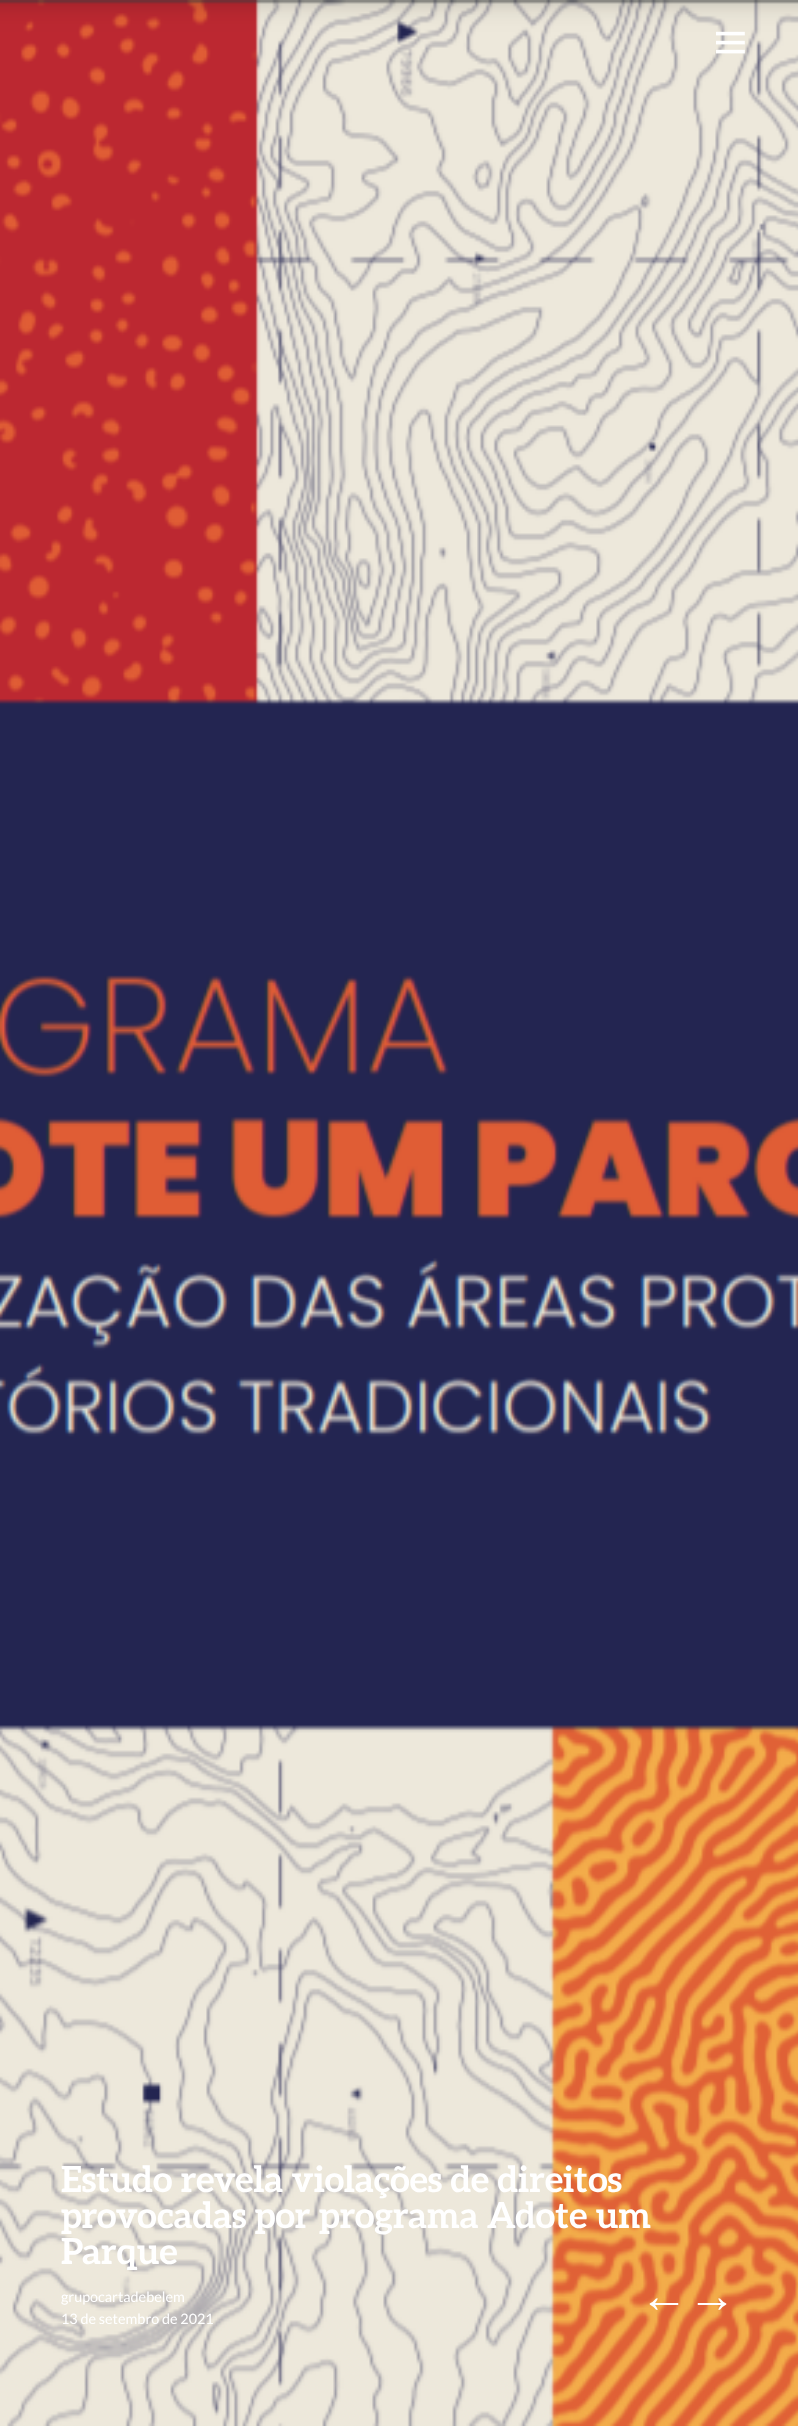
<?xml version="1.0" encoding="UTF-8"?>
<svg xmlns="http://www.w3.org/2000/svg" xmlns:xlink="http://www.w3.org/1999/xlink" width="798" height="2426">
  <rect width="100%" height="100%" fill="#ffffff" />
  <image x="0" y="0" width="798" height="2426" xlink:href="image2.png" />
  <image x="716" y="31" width="29" height="23" xlink:href="image1.png" />
  <text x="61" y="2192" style="font-family: Aleo; font-size: 36px; font-weight: bold; fill: #ffffff">Estudo revela violações de direitos</text>
  <text x="61" y="2228" style="font-family: Aleo; font-size: 36px; font-weight: bold; fill: #ffffff">provocadas por programa Adote um</text>
  <text x="61" y="2264" style="font-family: Aleo; font-size: 36px; font-weight: bold; fill: #ffffff">Parque</text>
  <text x="61" y="2302" style="font-family: Lato; font-size: 14.4px; fill: #ffffff">grupocartadebelem</text>
  <text x="61" y="2324" style="font-family: Lato; font-size: 14.4px; fill: #ffffff">13 de setembro de 2021</text>
  <text x="640" y="2312" style="font-family: Liberation Sans; font-size: 48px; font-weight: bold; fill: #ffffff">←→</text>
</svg>
